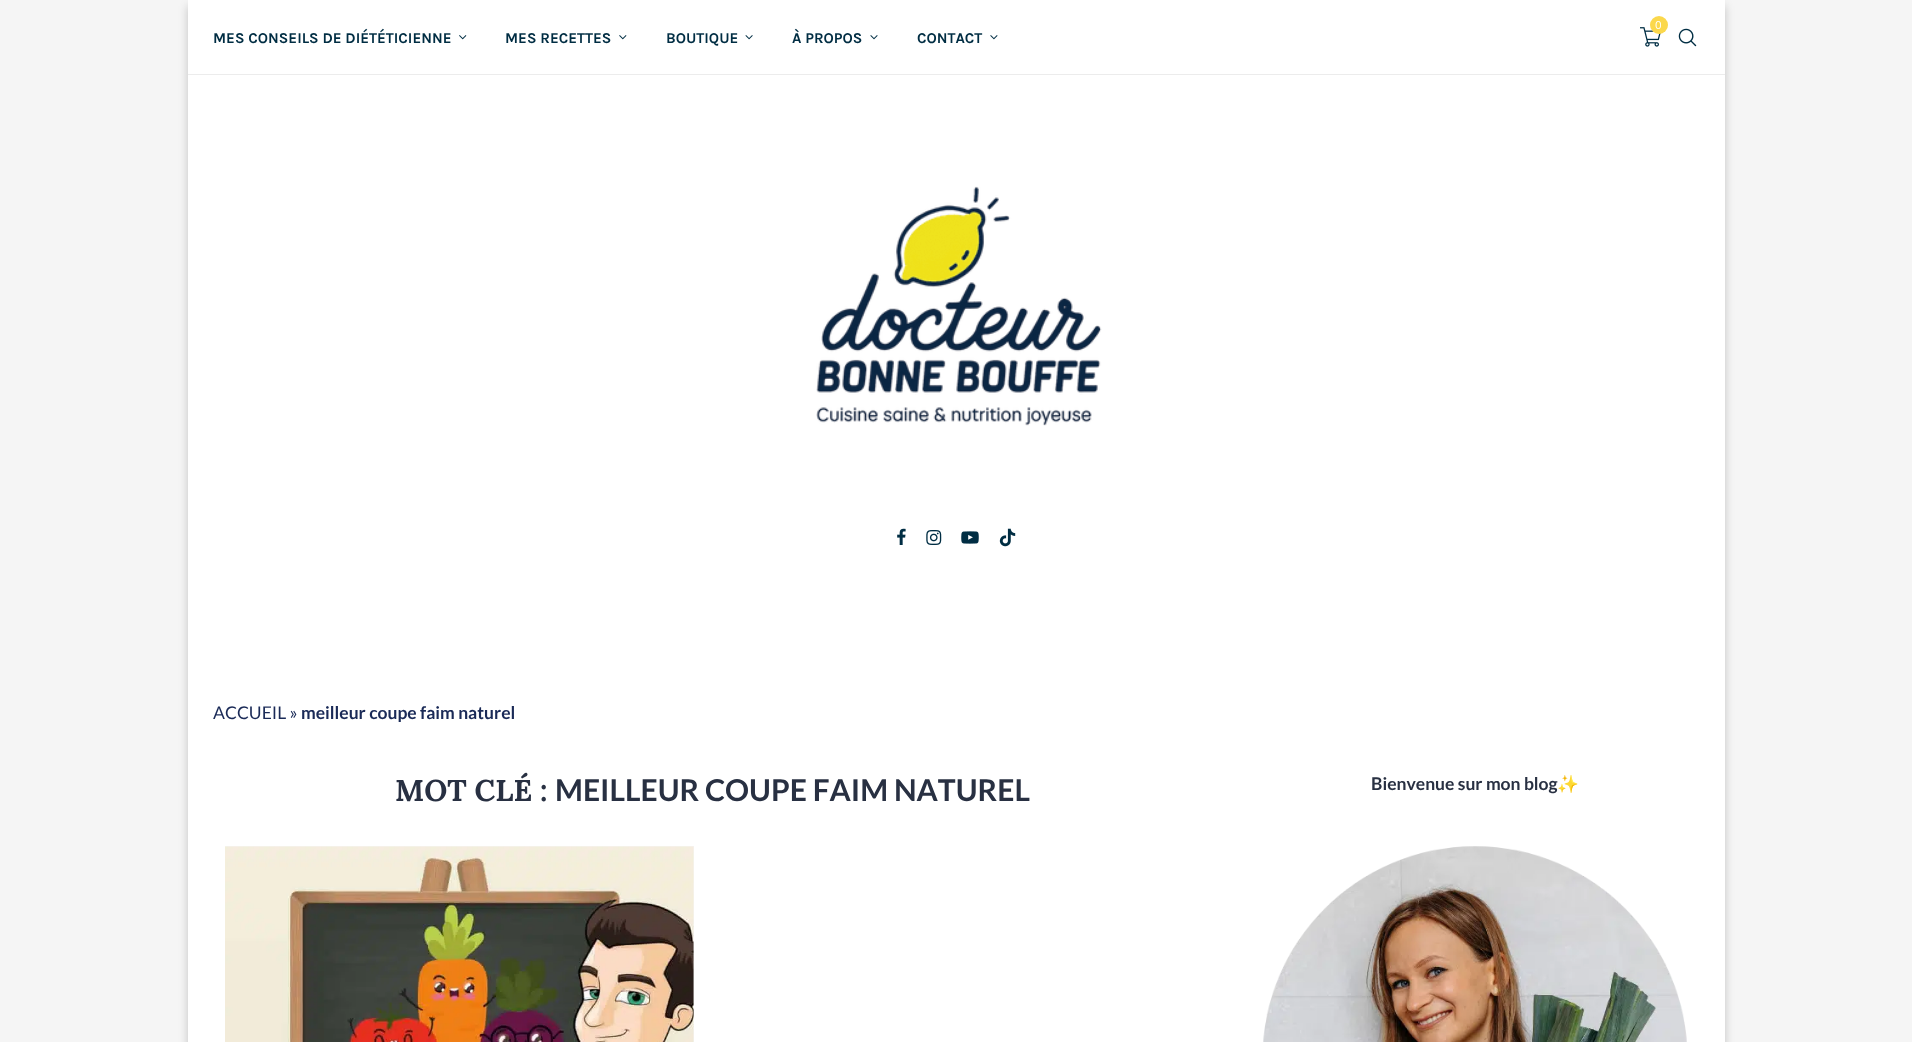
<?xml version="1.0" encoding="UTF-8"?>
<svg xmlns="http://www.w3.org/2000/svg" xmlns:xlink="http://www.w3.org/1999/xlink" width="1912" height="1042">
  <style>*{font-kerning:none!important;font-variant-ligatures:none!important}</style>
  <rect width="100%" height="100%" fill="#f5f5f5" />
  <rect x="188" y="6" width="1537" height="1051" fill="#000000" fill-opacity="0.2" filter="blur(5px)" />
  <rect x="188" width="1537" height="1042" fill="#ffffff" />
  <rect x="188" y="74" width="1537" height="1" fill="#ececec" />
  <image x="1640" y="27" width="21" height="20" xlink:href="image1.png" />
  <circle cx="1659" cy="25" r="9" fill="#fbd84c" />
  <image x="459" y="35" width="8" height="5" xlink:href="image2.png" />
  <image x="619" y="35" width="8" height="5" xlink:href="image3.png" />
  <image x="745" y="35" width="8" height="5" xlink:href="image4.png" />
  <image x="870" y="35" width="8" height="5" xlink:href="image5.png" />
  <image x="990" y="35" width="8" height="5" xlink:href="image6.png" />
  <image x="1678" y="28" width="19" height="19" xlink:href="image7.png" />
  <image x="816" y="186" width="286" height="240" xlink:href="image8.png" />
  <image x="897" y="528" width="9" height="17" xlink:href="image9.png" />
  <image x="926" y="530" width="16" height="15" xlink:href="image10.png" />
  <image x="961" y="531" width="18" height="13" xlink:href="image11.png" />
  <image x="999" y="528" width="17" height="19" xlink:href="image12.png" />
  <rect x="225" y="846" width="469" height="196" fill="#f5f5f5" />
  <image x="225" y="846" width="469" height="196" xlink:href="image13.png" />
  <image x="1263" y="846" width="424" height="196" xlink:href="image14.png" />
  <text x="1655" y="29" style="font-family: Muli; font-size: 11px; fill: #ffffff">0</text>
  <text x="213" y="43" style="font-family: Karla; font-size: 15px; font-weight: bold; fill: #002d43">MES CONSEILS DE DIÉTÉTICIENNE</text>
  <text x="505" y="43" style="font-family: Karla; font-size: 15px; font-weight: bold; fill: #002d43">MES RECETTES</text>
  <text x="666" y="43" style="font-family: Karla; font-size: 15px; font-weight: bold; fill: #002d43">BOUTIQUE</text>
  <text x="792" y="43" style="font-family: Karla; font-size: 15px; font-weight: bold; fill: #002d43">À PROPOS</text>
  <text x="917" y="43" style="font-family: Karla; font-size: 15px; font-weight: bold; fill: #002d43">CONTACT</text>
  <text x="213" y="719" style="font-family: Lato; font-size: 17.5px; fill: #1a2a57">ACCUEIL »</text>
  <text x="301" y="719" style="font-family: Lato; font-size: 17.5px; font-weight: bold; fill: #1a2a57">meilleur coupe faim naturel</text>
  <text x="395" y="801" style="font-family: Lora; font-size: 30px; font-weight: bold; fill: #283042">MOT CLÉ :</text>
  <text x="555" y="801" style="font-family: Lato; font-size: 30px; font-weight: bold; fill: #283042">MEILLEUR COUPE FAIM NATUREL</text>
  <text x="1371" y="790" style="font-family: Lato; font-size: 17.5px; font-weight: bold; fill: #283042">Bienvenue sur mon blog</text>
  <text x="1557" y="790" style="font-family: Noto Color Emoji; font-size: 17.5px; font-weight: bold; fill: #283042">✨</text>
</svg>
